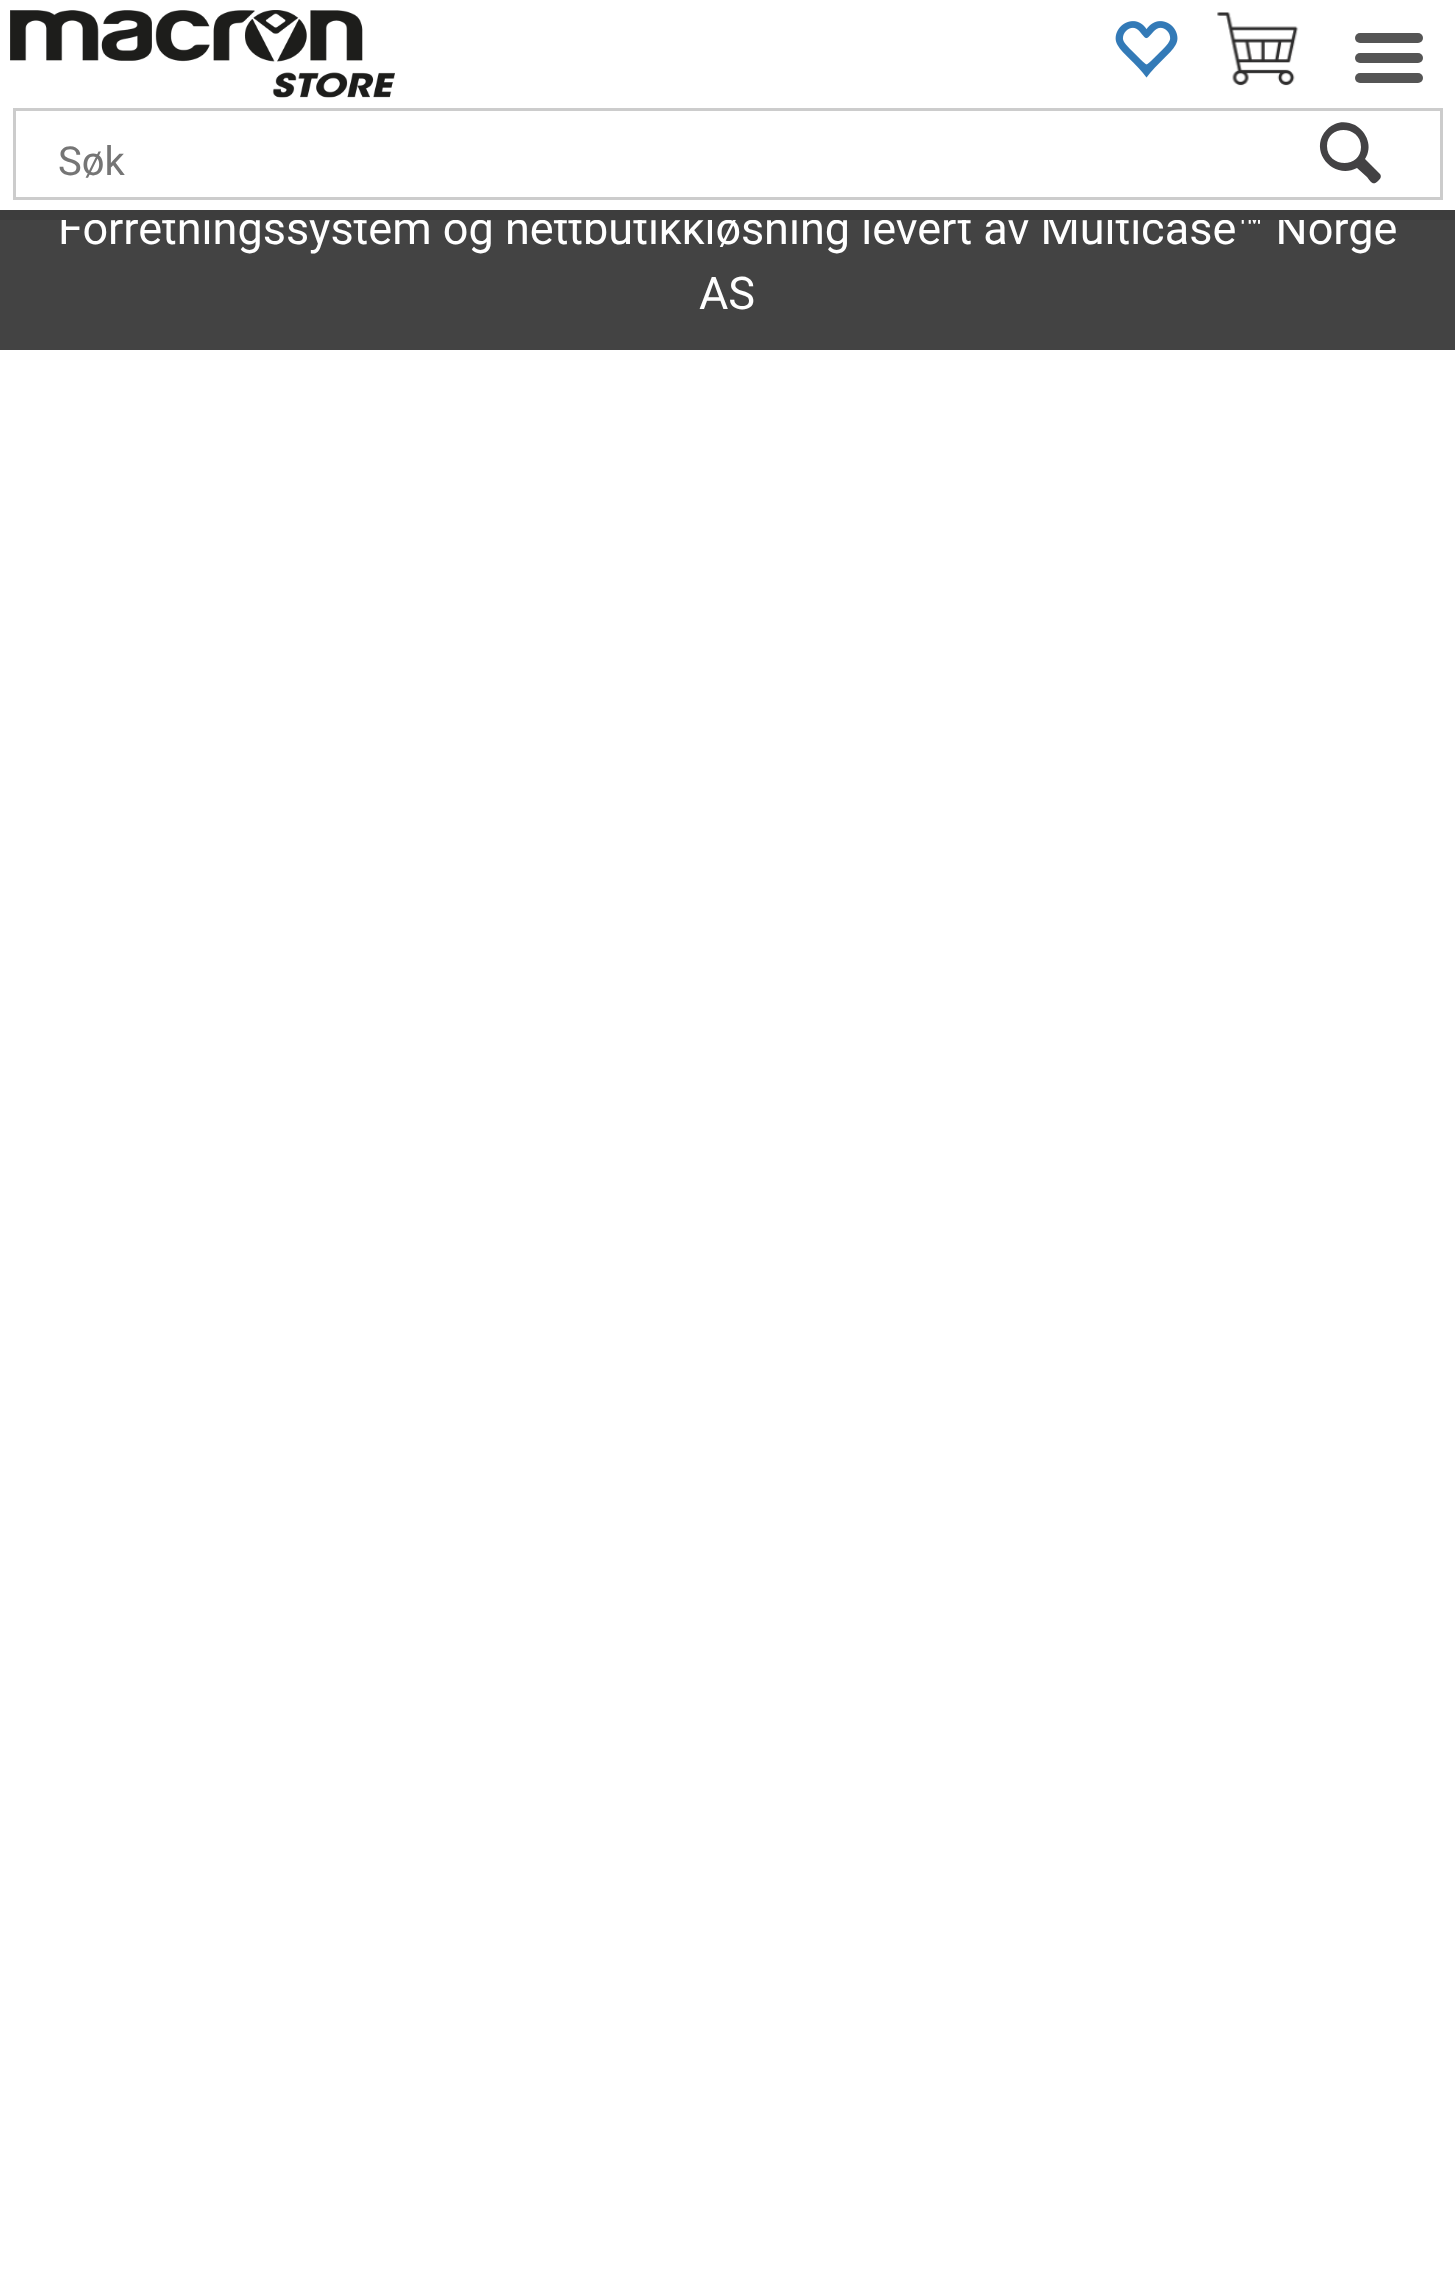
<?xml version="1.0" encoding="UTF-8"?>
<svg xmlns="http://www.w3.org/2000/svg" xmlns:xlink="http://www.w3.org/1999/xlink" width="1455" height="2288">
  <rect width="100%" height="100%" fill="#ffffff" />
  <image x="10" y="10" width="385" height="88" xlink:href="image1.png" />
  <image x="1115" y="21" width="63" height="57" xlink:href="image2.png" />
  <image x="1217" y="12" width="82" height="74" xlink:href="image3.png" />
  <rect x="1355" y="33" width="68" height="10" rx="5" fill="#555555" />
  <rect x="1355" y="53" width="68" height="10" rx="5" fill="#555555" />
  <rect x="1355" y="73" width="68" height="10" rx="5" fill="#555555" />
  <rect x="14.5" y="109.5" width="1427" height="89" fill="none" stroke="#cccccc" stroke-width="3" />
  <path d="M 1380 174 c 2 3 0 5 -2 7 c -5 5 -7 1 -11 -4 l -10 -9 c -22 12 -47 -14 -33 -35 c 3 -4 6 -7 11 -9 c 6 -3 14 -2 20 1 c 12 7 18 22 10 34 z m -53 -28 c 0 22 34 23 34 1 c 0 -22 -34 -23 -34 -1 z" fill="#434244" />
  <rect y="220" width="1455" height="130" fill="#434343" />
  <text x="58" y="175" style="font-family: Roboto; font-size: 40px; fill: #757575">Søk</text>
  <text x="58" y="244" style="font-family: Roboto; font-size: 45px; fill: #ffffff">Forretningssystem og nettbutikkløsning levert av Multicase™ Norge</text>
  <rect y="210" width="1455" height="10" fill="#3d3d3d" />
  <text x="699" y="309" style="font-family: Roboto; font-size: 45px; fill: #ffffff">AS</text>
</svg>
